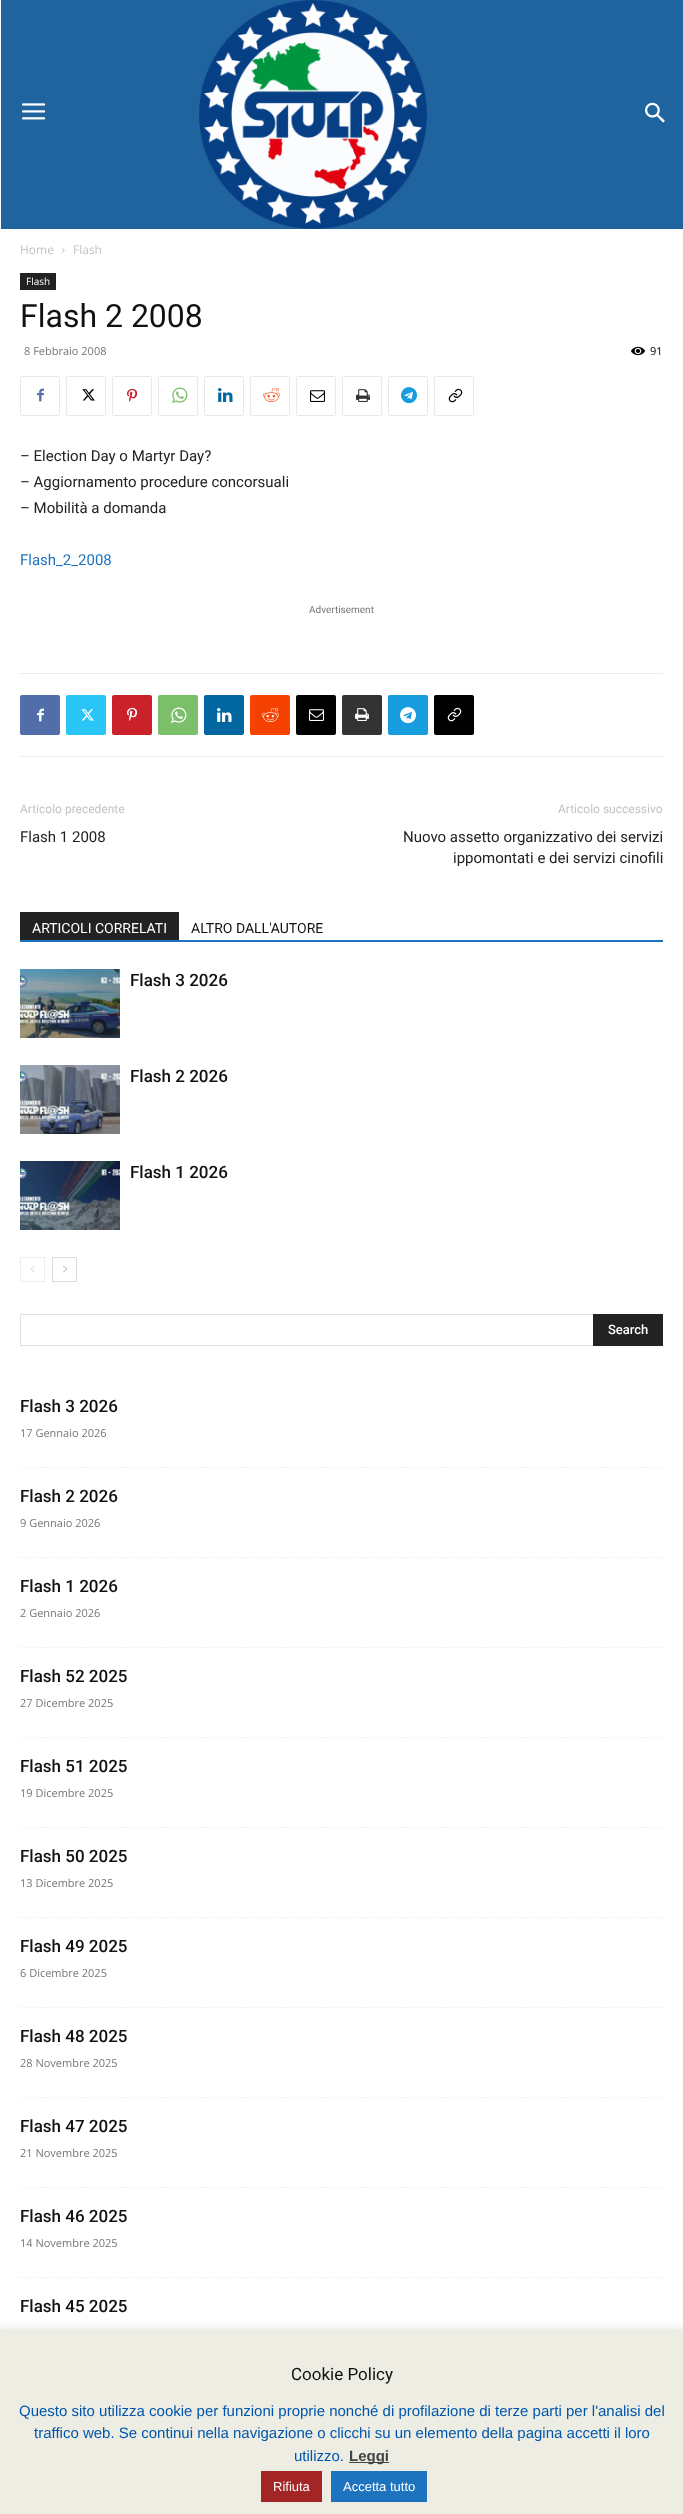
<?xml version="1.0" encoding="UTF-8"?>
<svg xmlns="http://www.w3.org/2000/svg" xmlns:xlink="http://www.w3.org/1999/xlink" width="683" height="2514">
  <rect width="100%" height="100%" fill="#ffffff" />
  <rect x="1" width="682" height="229" fill="#1f639f" />
  <image x="22" y="103" width="24" height="17" xlink:href="image1.png" />
  <image x="199" y="0" width="228" height="229" xlink:href="image2.png" />
  <image x="645" y="102" width="20" height="21" xlink:href="image3.png" />
  <image x="62" y="248" width="3" height="5" xlink:href="image4.png" />
  <rect x="20" y="273" width="36" height="17" fill="#222222" />
  <image x="631" y="346" width="14" height="10" xlink:href="image5.png" />
  <rect x="20.5" y="376.5" width="39" height="39" rx="1.5" fill="none" stroke="#e9e9e9" />
  <image x="37" y="388" width="7" height="14" xlink:href="image6.png" />
  <rect x="66.5" y="376.5" width="39" height="39" rx="1.5" fill="none" stroke="#e9e9e9" />
  <image x="82" y="389" width="13" height="12" xlink:href="image7.png" />
  <rect x="112.5" y="376.5" width="39" height="39" rx="1.5" fill="none" stroke="#e9e9e9" />
  <image x="127" y="388" width="11" height="14" xlink:href="image8.png" />
  <rect x="158.5" y="376.5" width="39" height="39" rx="1.5" fill="none" stroke="#e9e9e9" />
  <image x="172" y="387" width="16" height="16" xlink:href="image9.png" />
  <rect x="204.5" y="376.5" width="39" height="39" rx="1.5" fill="none" stroke="#e9e9e9" />
  <image x="218" y="388" width="15" height="14" xlink:href="image10.png" />
  <rect x="250.5" y="376.5" width="39" height="39" rx="1.5" fill="none" stroke="#e9e9e9" />
  <image x="263" y="388" width="17" height="14" xlink:href="image11.png" />
  <rect x="296.5" y="376.5" width="39" height="39" rx="1.5" fill="none" stroke="#e9e9e9" />
  <image x="310" y="390" width="15" height="12" xlink:href="image12.png" />
  <rect x="342.5" y="376.5" width="39" height="39" rx="1.5" fill="none" stroke="#e9e9e9" />
  <image x="356" y="389" width="14" height="13" xlink:href="image13.png" />
  <rect x="388.5" y="376.5" width="39" height="39" rx="1.5" fill="none" stroke="#e9e9e9" />
  <image x="401" y="387" width="16" height="17" xlink:href="image14.png" />
  <rect x="434.5" y="376.5" width="39" height="39" rx="1.5" fill="none" stroke="#e9e9e9" />
  <image x="448" y="388" width="15" height="15" xlink:href="image15.png" />
  <rect x="20" y="673" width="643" height="1" fill="#ededed" />
  <rect x="20" y="756" width="643" height="1" fill="#ededed" />
  <rect x="20" y="695" width="40" height="40" rx="2" fill="#516eab" />
  <image x="37" y="708" width="7" height="14" xlink:href="image16.png" />
  <rect x="66" y="695" width="40" height="40" rx="2" fill="#29c5f6" />
  <image x="81" y="709" width="13" height="12" xlink:href="image17.png" />
  <rect x="112" y="695" width="40" height="40" rx="2" fill="#ca212a" />
  <image x="127" y="707" width="11" height="14" xlink:href="image18.png" />
  <rect x="158" y="695" width="40" height="40" rx="2" fill="#7bbf6a" />
  <image x="171" y="707" width="16" height="16" xlink:href="image19.png" />
  <rect x="204" y="695" width="40" height="40" rx="2" fill="#0266a0" />
  <image x="217" y="708" width="15" height="14" xlink:href="image20.png" />
  <rect x="250" y="695" width="40" height="40" rx="2" fill="#f54200" />
  <image x="262" y="708" width="17" height="14" xlink:href="image21.png" />
  <rect x="296" y="695" width="40" height="40" rx="2" fill="#000000" />
  <image x="309" y="709" width="15" height="12" xlink:href="image22.png" />
  <rect x="342" y="695" width="40" height="40" rx="2" fill="#333333" />
  <image x="355" y="708" width="14" height="13" xlink:href="image23.png" />
  <rect x="388" y="695" width="40" height="40" rx="2" fill="#179cde" />
  <image x="400" y="707" width="16" height="17" xlink:href="image24.png" />
  <rect x="434" y="695" width="40" height="40" rx="2" fill="#000000" />
  <image x="447" y="707" width="15" height="15" xlink:href="image25.png" />
  <rect x="20" y="940" width="643" height="2" fill="#1e73be" />
  <rect x="20" y="912" width="159" height="28" fill="#222222" />
  <image x="20" y="969" width="100" height="69" xlink:href="image26.png" />
  <image x="20" y="1065" width="100" height="69" xlink:href="image27.png" />
  <image x="20" y="1161" width="100" height="69" xlink:href="image28.png" />
  <rect x="20.5" y="1257.5" width="24" height="24" fill="none" stroke="#eeeeee" />
  <image x="30" y="1265" width="5" height="8" xlink:href="image29.png" />
  <rect x="52.5" y="1257.5" width="24" height="24" fill="none" stroke="#dcdcdc" />
  <image x="63" y="1265" width="5" height="8" xlink:href="image30.png" />
  <rect x="20" y="1314" width="573" height="1" fill="#e1e1e1" />
  <rect x="20" y="1345" width="573" height="1" fill="#e1e1e1" />
  <rect x="20" y="1314" width="1" height="32" fill="#e1e1e1" />
  <rect x="593" y="1314" width="70" height="32" fill="#222222" />
  <path d="M 20 1467.5 h 643" fill="none" stroke="#f2f2f2" stroke-dasharray="3 2" />
  <path d="M 20 1557.5 h 643" fill="none" stroke="#f2f2f2" stroke-dasharray="3 2" />
  <path d="M 20 1647.5 h 643" fill="none" stroke="#f2f2f2" stroke-dasharray="3 2" />
  <path d="M 20 1737.5 h 643" fill="none" stroke="#f2f2f2" stroke-dasharray="3 2" />
  <path d="M 20 1827.5 h 643" fill="none" stroke="#f2f2f2" stroke-dasharray="3 2" />
  <path d="M 20 1917.5 h 643" fill="none" stroke="#f2f2f2" stroke-dasharray="3 2" />
  <path d="M 20 2007.5 h 643" fill="none" stroke="#f2f2f2" stroke-dasharray="3 2" />
  <path d="M 20 2097.5 h 643" fill="none" stroke="#f2f2f2" stroke-dasharray="3 2" />
  <path d="M 20 2187.5 h 643" fill="none" stroke="#f2f2f2" stroke-dasharray="3 2" />
  <path d="M 20 2277.5 h 643" fill="none" stroke="#f2f2f2" stroke-dasharray="3 2" />
  <rect y="2328" width="683" height="185" fill="#acabab" fill-opacity="0.3" filter="blur(5px)" />
  <rect y="2329" width="683" height="185" fill="#edede3" />
  <rect x="349" y="2462" width="40" height="1" fill="#444444" />
  <rect x="261" y="2471" width="61" height="31" fill="#a32525" />
  <rect x="331" y="2471" width="96" height="31" fill="#1e73be" />
  <text x="20" y="254" style="font-family: Open Sans; font-size: 12px; fill: #c3c3c3">Home</text>
  <text x="73" y="254" style="font-family: Open Sans; font-size: 12px; fill: #c3c3c3">Flash</text>
  <text x="26" y="285" style="font-family: Open Sans; font-size: 10px; fill: #ffffff">Flash</text>
  <text x="20" y="327" style="font-family: Roboto; font-size: 32px; fill: #111111">Flash 2 2008</text>
  <text x="24" y="355" style="font-family: Open Sans; font-size: 11px; fill: #767676">8 Febbraio 2008</text>
  <text x="650" y="355" style="font-family: Open Sans; font-size: 11px; fill: #000000">91</text>
  <text x="20" y="461" style="font-family: Roboto; font-size: 15px; fill: #222222">– Election Day o Martyr Day?</text>
  <text x="20" y="487" style="font-family: Roboto; font-size: 15px; fill: #222222">– Aggiornamento procedure concorsuali</text>
  <text x="20" y="513" style="font-family: Roboto; font-size: 15px; fill: #222222">– Mobilità a domanda</text>
  <text x="20" y="565" style="font-family: Roboto; font-size: 15px; fill: #1e73be">Flash_2_2008</text>
  <text x="309" y="613" style="font-family: Roboto; font-size: 10px; fill: #767676">Advertisement</text>
  <text x="20" y="813" style="font-family: Roboto; font-size: 12px; fill: #c3c3c3">Articolo precedente</text>
  <text x="20" y="842" style="font-family: Roboto; font-size: 15px; fill: #222222">Flash 1 2008</text>
  <text x="558" y="813" style="font-family: Roboto; font-size: 12px; fill: #c3c3c3">Articolo successivo</text>
  <text x="403" y="842" style="font-family: Roboto; font-size: 15px; fill: #222222">Nuovo assetto organizzativo dei servizi</text>
  <text x="453" y="863" style="font-family: Roboto; font-size: 15px; fill: #222222">ippomontati e dei servizi cinofili</text>
  <text x="32" y="933" style="font-family: Roboto; font-size: 14px; fill: #ffffff">ARTICOLI CORRELATI</text>
  <text x="191" y="933" style="font-family: Roboto; font-size: 14px; fill: #111111">ALTRO DALL'AUTORE</text>
  <text x="130" y="986" style="font-family: Roboto; font-size: 17px; font-weight: 500; fill: #111111">Flash 3 2026</text>
  <text x="130" y="1082" style="font-family: Roboto; font-size: 17px; font-weight: 500; fill: #111111">Flash 2 2026</text>
  <text x="130" y="1178" style="font-family: Roboto; font-size: 17px; font-weight: 500; fill: #111111">Flash 1 2026</text>
  <text x="608" y="1334" style="font-family: Roboto; font-size: 13px; font-weight: 500; fill: #ffffff">Search</text>
  <text x="20" y="1412" style="font-family: Roboto; font-size: 17px; font-weight: 500; fill: #111111">Flash 3 2026</text>
  <text x="20" y="1437" style="font-family: Open Sans; font-size: 11px; fill: #767676">17 Gennaio 2026</text>
  <text x="20" y="1502" style="font-family: Roboto; font-size: 17px; font-weight: 500; fill: #111111">Flash 2 2026</text>
  <text x="20" y="1527" style="font-family: Open Sans; font-size: 11px; fill: #767676">9 Gennaio 2026</text>
  <text x="20" y="1592" style="font-family: Roboto; font-size: 17px; font-weight: 500; fill: #111111">Flash 1 2026</text>
  <text x="20" y="1617" style="font-family: Open Sans; font-size: 11px; fill: #767676">2 Gennaio 2026</text>
  <text x="20" y="1682" style="font-family: Roboto; font-size: 17px; font-weight: 500; fill: #111111">Flash 52 2025</text>
  <text x="20" y="1707" style="font-family: Open Sans; font-size: 11px; fill: #767676">27 Dicembre 2025</text>
  <text x="20" y="1772" style="font-family: Roboto; font-size: 17px; font-weight: 500; fill: #111111">Flash 51 2025</text>
  <text x="20" y="1797" style="font-family: Open Sans; font-size: 11px; fill: #767676">19 Dicembre 2025</text>
  <text x="20" y="1862" style="font-family: Roboto; font-size: 17px; font-weight: 500; fill: #111111">Flash 50 2025</text>
  <text x="20" y="1887" style="font-family: Open Sans; font-size: 11px; fill: #767676">13 Dicembre 2025</text>
  <text x="20" y="1952" style="font-family: Roboto; font-size: 17px; font-weight: 500; fill: #111111">Flash 49 2025</text>
  <text x="20" y="1977" style="font-family: Open Sans; font-size: 11px; fill: #767676">6 Dicembre 2025</text>
  <text x="20" y="2042" style="font-family: Roboto; font-size: 17px; font-weight: 500; fill: #111111">Flash 48 2025</text>
  <text x="20" y="2067" style="font-family: Open Sans; font-size: 11px; fill: #767676">28 Novembre 2025</text>
  <text x="20" y="2132" style="font-family: Roboto; font-size: 17px; font-weight: 500; fill: #111111">Flash 47 2025</text>
  <text x="20" y="2157" style="font-family: Open Sans; font-size: 11px; fill: #767676">21 Novembre 2025</text>
  <text x="20" y="2222" style="font-family: Roboto; font-size: 17px; font-weight: 500; fill: #111111">Flash 46 2025</text>
  <text x="20" y="2247" style="font-family: Open Sans; font-size: 11px; fill: #767676">14 Novembre 2025</text>
  <text x="20" y="2312" style="font-family: Roboto; font-size: 17px; font-weight: 500; fill: #111111">Flash 45 2025</text>
  <text x="291" y="2380" style="font-family: Roboto; font-size: 17px; fill: #111111">Cookie Policy</text>
  <text x="19" y="2416" style="font-family: Liberation Sans; font-size: 15px; fill: #0056ad">Questo sito utilizza cookie per funzioni proprie nonché di profilazione di terze parti per l'analisi del</text>
  <text x="34" y="2438" style="font-family: Liberation Sans; font-size: 15px; fill: #0056ad">traffico web. Se continui nella navigazione o clicchi su un elemento della pagina accetti il loro</text>
  <text x="294" y="2461" style="font-family: Liberation Sans; font-size: 15px; fill: #0056ad">utilizzo.</text>
  <text x="349" y="2461" style="font-family: Liberation Sans; font-size: 15px; font-weight: bold; fill: #444444">Leggi</text>
  <text x="273" y="2491" style="font-family: Liberation Sans; font-size: 13px; fill: #ffffff">Rifiuta</text>
  <text x="343" y="2491" style="font-family: Liberation Sans; font-size: 13px; fill: #ffffff">Accetta tutto</text>
</svg>
